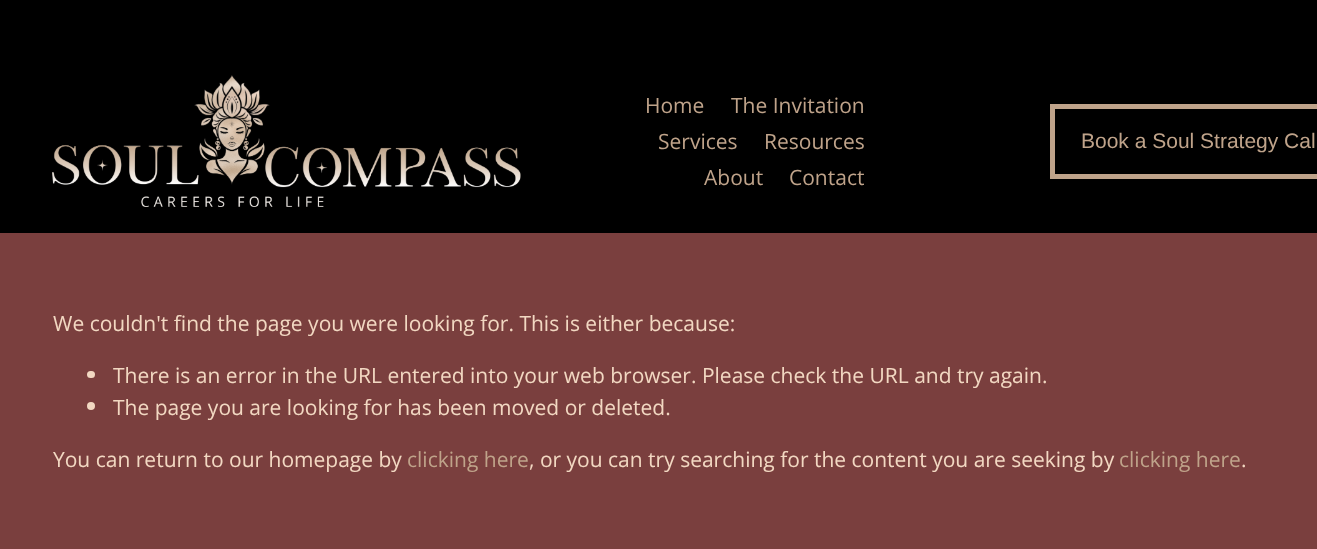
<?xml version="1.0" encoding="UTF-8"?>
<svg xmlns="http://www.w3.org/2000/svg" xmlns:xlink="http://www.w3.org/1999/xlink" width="1317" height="549">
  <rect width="100%" height="100%" fill="#7a3f3e" />
  <rect width="1317" height="233" fill="#000000" />
  <image x="52" y="75" width="469" height="132" xlink:href="image1.png" />
  <rect x="1052.5" y="106.5" width="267" height="70" fill="none" stroke="#bfa38a" stroke-width="5" />
  <rect x="87" y="371" width="8" height="7" rx="3.5" fill="#f2d8c2" />
  <circle cx="91" cy="406" r="4" fill="#f2d8c2" />
  <text x="645" y="113" style="font-family: Open Sans; font-size: 21px; fill: #bfa38a">Home</text>
  <text x="731" y="113" style="font-family: Open Sans; font-size: 21px; fill: #bfa38a">The Invitation</text>
  <text x="658" y="149" style="font-family: Open Sans; font-size: 21px; fill: #bfa38a">Services</text>
  <text x="764" y="149" style="font-family: Open Sans; font-size: 21px; fill: #bfa38a">Resources</text>
  <text x="704" y="185" style="font-family: Open Sans; font-size: 21px; fill: #bfa38a">About</text>
  <text x="789" y="185" style="font-family: Open Sans; font-size: 21px; fill: #bfa38a">Contact</text>
  <text x="1081" y="148" style="font-family: Arimo; font-size: 21px; fill: #bfa38a">Book a Soul Strategy Cal</text>
  <text x="53" y="331" style="font-family: Open Sans; font-size: 21px; fill: #f2d8c2">We couldn't find the page you were looking for. This is either because:</text>
  <text x="113" y="383" style="font-family: Open Sans; font-size: 21px; fill: #f2d8c2">There is an error in the URL entered into your web browser. Please check the URL and try again.</text>
  <text x="113" y="415" style="font-family: Open Sans; font-size: 21px; fill: #f2d8c2">The page you are looking for has been moved or deleted.</text>
  <text x="53" y="467" style="font-family: Open Sans; font-size: 21px; fill: #f2d8c2">You can return to our homepage by</text>
  <text x="407" y="467" style="font-family: Open Sans; font-size: 21px; fill: #bfa38a">clicking here</text>
  <text x="529" y="467" style="font-family: Open Sans; font-size: 21px; fill: #f2d8c2">, or you can try searching for the content you are seeking by</text>
  <text x="1119" y="467" style="font-family: Open Sans; font-size: 21px; fill: #bfa38a">clicking here</text>
  <text x="1241" y="467" style="font-family: Open Sans; font-size: 21px; fill: #f2d8c2">.</text>
</svg>
